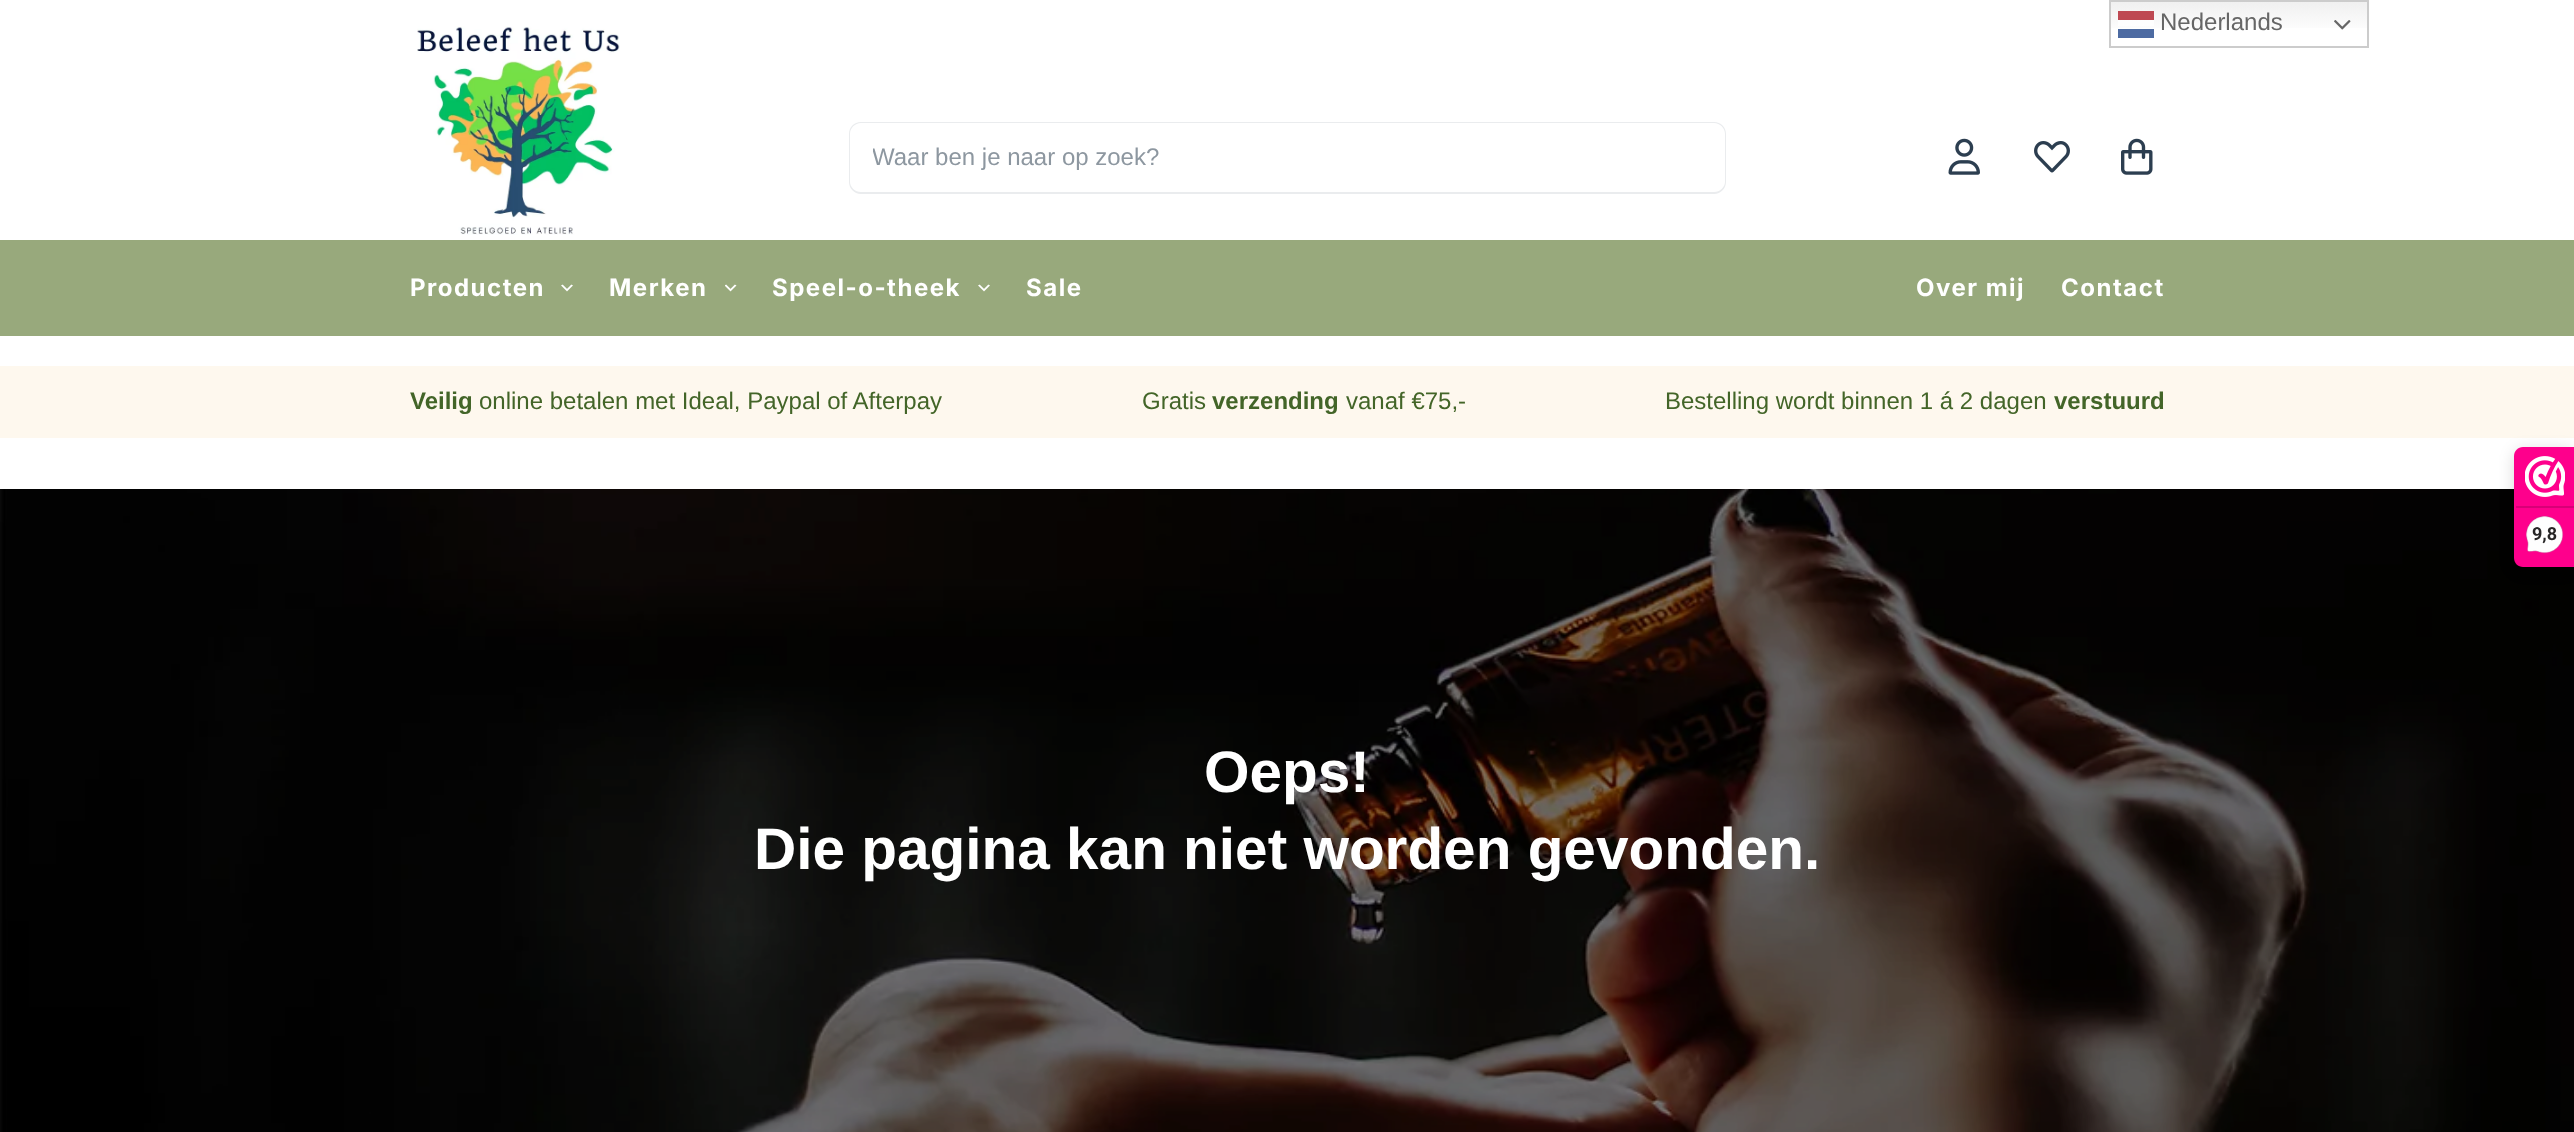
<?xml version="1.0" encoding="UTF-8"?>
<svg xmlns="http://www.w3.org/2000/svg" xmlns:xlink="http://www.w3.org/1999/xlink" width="2574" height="1132">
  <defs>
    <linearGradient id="g1" gradientUnits="userSpaceOnUse" x1="2239" y1="0" x2="2239" y2="48"><stop offset="0" stop-color="#efefef" /><stop offset="0.7" stop-color="#ffffff" /></linearGradient>
    <linearGradient id="g2" gradientUnits="userSpaceOnUse" x1="2239" y1="0" x2="2239" y2="48"><stop offset="0" stop-color="#fcfcfc" /><stop offset="0.7" stop-color="#ffffff" /></linearGradient>
    <clipPath id="clip1"><rect x="873" y="144" width="753" height="27" /></clipPath>
  </defs>
  <rect width="100%" height="100%" fill="#ffffff" />
  <rect x="2111" y="2" width="256" height="26" fill="url(#g1)" />
  <rect x="2118" y="20" width="36" height="6" fill="url(#g2)" />
  <rect x="2110" y="1" width="258" height="46" fill="none" stroke="#cccccc" stroke-width="2" />
  <rect x="2118" y="11" width="36" height="9" fill="#be4953" />
  <image x="2334" y="20" width="17" height="10" xlink:href="image1.png" />
  <rect x="2118" y="29" width="36" height="9" fill="#4d6ba2" />
  <image x="417" y="26" width="203" height="209" xlink:href="image2.png" />
  <path d="M 861 122 h 793 v 72 h -793 c -7 0 -12 -6 -12 -12 v -48 c 0 -7 5 -12 12 -12 z m 0 1 h 793 v 69 h -793 c -6 0 -11 -5 -11 -10 v -48 c 0 -6 5 -11 11 -11 z" fill="#eaecee" fill-rule="evenodd" />
  <path d="M 1654 122 h 60 c 7 0 12 5 12 12 v 48 c 0 6 -5 12 -12 12 h -60 z m 0 1 h 60 c 6 0 11 5 11 11 v 48 c 0 5 -5 10 -11 10 h -60 z" fill="#eaecee" fill-rule="evenodd" />
  <image x="1948" y="138" width="32" height="37" xlink:href="image3.png" />
  <image x="2034" y="141" width="36" height="32" xlink:href="image4.png" />
  <image x="2121" y="138" width="32" height="37" xlink:href="image5.png" />
  <rect y="240" width="2574" height="96" fill="#98a97c" />
  <image x="561" y="284" width="12" height="8" xlink:href="image6.png" />
  <image x="725" y="284" width="12" height="8" xlink:href="image7.png" />
  <image x="978" y="284" width="12" height="8" xlink:href="image6.png" />
  <rect y="366" width="2574" height="72" fill="#fef8ee" />
  <image x="0" y="489" width="2574" height="643" xlink:href="image8.png" />
  <rect x="2514" y="450" width="60" height="120" rx="9" fill="#000000" fill-opacity="0.15" filter="blur(7.5px)" />
  <path d="M 2523 447 h 51 v 120 h -51 c -5 0 -9 -4 -9 -9 v -102 c 0 -5 4 -9 9 -9 z" fill="#fe008c" />
  <image x="2525" y="456" width="40" height="41" xlink:href="image9.png" />
  <rect x="2516" y="506" width="58" height="2" fill="#d80077" />
  <image x="2526" y="516" width="38" height="38" xlink:href="image10.png" />
  <text x="2160" y="30" style="font-family: Liberation Sans; font-size: 24px; fill: #666666">Nederlands</text>
  <g clip-path="url(#clip1)">
    <text x="872" y="165" style="font-family: Liberation Sans; font-size: 24px; fill: #8d97a0">Waar ben je naar op zoek?</text>
  </g>
  <text x="410" y="296" style="font-family: Inter; font-size: 24px; font-weight: bold; letter-spacing: 1.5px; fill: #ffffff">Producten</text>
  <text x="609" y="296" style="font-family: Inter; font-size: 24px; font-weight: bold; letter-spacing: 1.5px; fill: #ffffff">Merken</text>
  <text x="772" y="296" style="font-family: Inter; font-size: 24px; font-weight: bold; letter-spacing: 1.5px; fill: #ffffff">Speel-o-theek</text>
  <text x="1026" y="296" style="font-family: Inter; font-size: 24px; font-weight: bold; letter-spacing: 1.5px; fill: #ffffff">Sale</text>
  <text x="1916" y="296" style="font-family: Inter; font-size: 24px; font-weight: bold; letter-spacing: 1.5px; fill: #ffffff">Over mij</text>
  <text x="2061" y="296" style="font-family: Inter; font-size: 24px; font-weight: bold; letter-spacing: 1.5px; fill: #ffffff">Contact</text>
  <text x="410" y="409" style="font-family: Liberation Sans; font-size: 24px; font-weight: bold; fill: #436528">Veilig</text>
  <text x="479" y="409" style="font-family: Liberation Sans; font-size: 24px; fill: #436528">online betalen met Ideal, Paypal of Afterpay</text>
  <text x="1142" y="409" style="font-family: Liberation Sans; font-size: 24px; fill: #436528">Gratis</text>
  <text x="1212" y="409" style="font-family: Liberation Sans; font-size: 24px; font-weight: bold; fill: #436528">verzending</text>
  <text x="1346" y="409" style="font-family: Liberation Sans; font-size: 24px; fill: #436528">vanaf €75,-</text>
  <text x="1665" y="409" style="font-family: Liberation Sans; font-size: 24px; fill: #436528">Bestelling wordt binnen 1 á 2 dagen</text>
  <text x="2054" y="409" style="font-family: Liberation Sans; font-size: 24px; font-weight: bold; fill: #436528">verstuurd</text>
  <text x="1204" y="792" style="font-family: Liberation Sans; font-size: 58.5px; font-weight: bold; fill: #ffffff">Oeps!</text>
  <text x="754" y="869" style="font-family: Liberation Sans; font-size: 58.5px; font-weight: bold; fill: #ffffff">Die pagina kan niet worden gevonden.</text>
  <text x="2532" y="540" style="font-family: Roboto; font-size: 18px; font-weight: bold; fill: #272626">9,8</text>
</svg>
